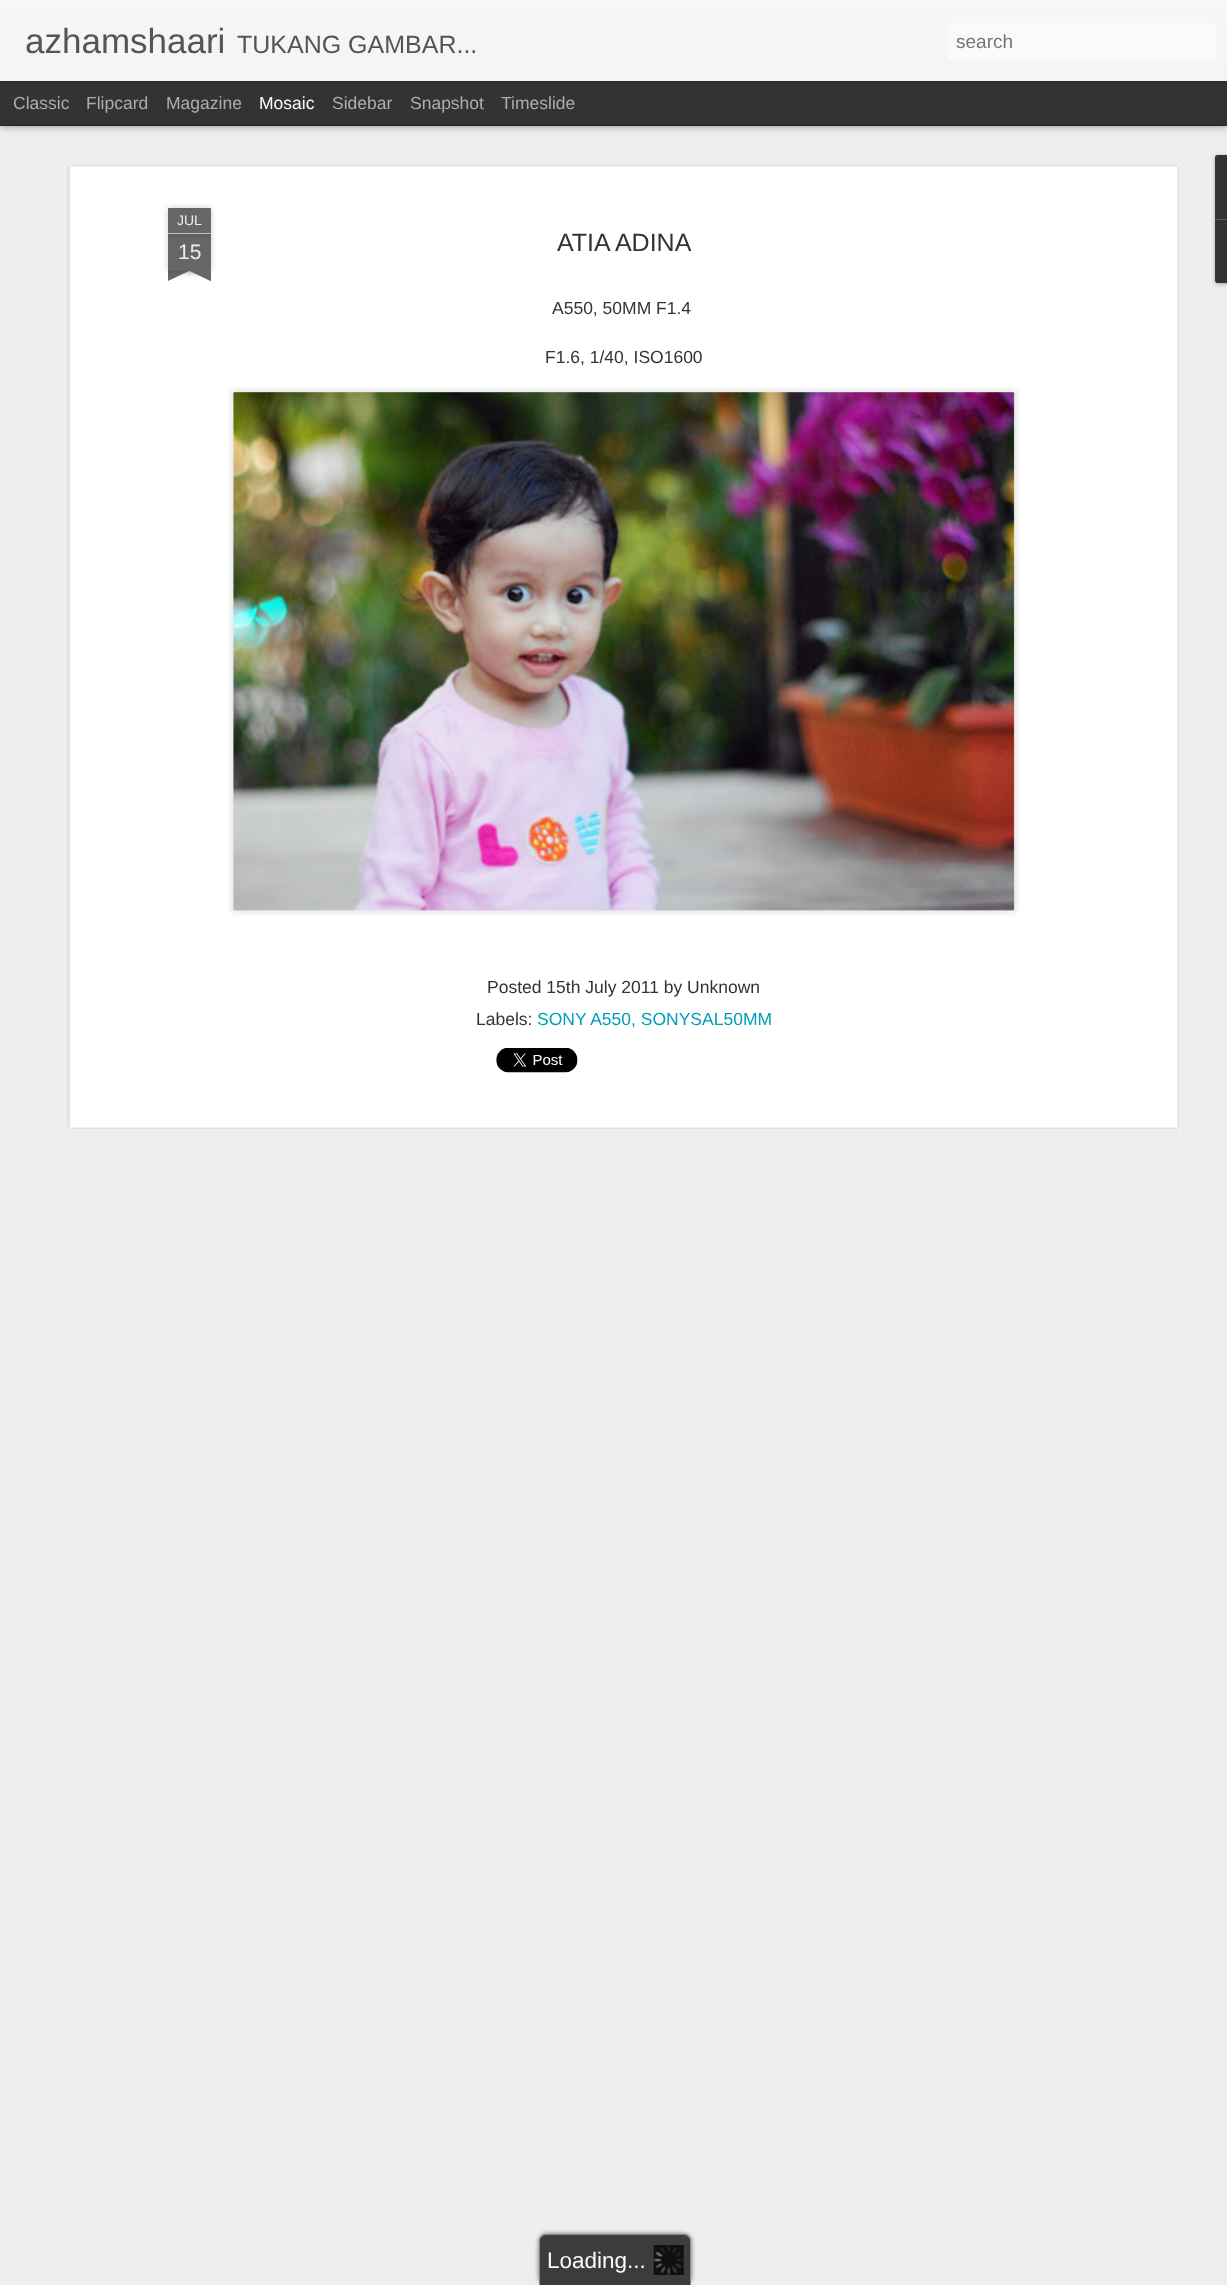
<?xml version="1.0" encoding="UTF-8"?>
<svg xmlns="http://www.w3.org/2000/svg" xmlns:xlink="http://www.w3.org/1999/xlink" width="1227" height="2285">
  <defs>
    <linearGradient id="g1" gradientUnits="userSpaceOnUse" x1="0" y1="0" x2="0" y2="81"><stop offset="0" stop-color="#f7f7f7" /><stop offset="1" stop-color="#f4f4f4" /></linearGradient>
    <clipPath id="clip1"><rect x="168" y="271" width="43" height="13" /></clipPath>
    <clipPath id="clip2"><rect x="168" y="271" width="43" height="13" /></clipPath>
  </defs>
  <rect width="100%" height="100%" fill="#333333" />
  <rect y="126" width="1227" height="2159" fill="#eeeeee" />
  <rect y="81" width="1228" height="44" fill="#000000" fill-opacity="0.5" filter="blur(5px)" />
  <rect y="81" width="1227" height="44" fill="#333333" />
  <rect width="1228" height="81" fill="#000000" fill-opacity="0.3" filter="blur(3px)" />
  <rect width="1227" height="81" fill="url(#g1)" />
  <rect x="948" y="23" width="267" height="37" rx="4" fill="#fafafa" />
  <rect x="68" y="164" width="1112" height="966" fill="#ffffff" />
  <image x="67" y="164" width="1113" height="966" xlink:href="image1.png" />
  <rect x="168" y="234" width="43" height="37" fill="#000000" fill-opacity="0.2" filter="blur(3px)" />
  <rect x="168" y="234" width="43" height="37" fill="#666666" />
  <rect x="168" y="208" width="43" height="26" rx="1" fill="#000000" fill-opacity="0.2" filter="blur(3px)" />
  <path d="M 169 208 h 41 c 0.5 0 1 0.5 1 1 v 25 h -43 v -25 c 0 -0.5 0.5 -1 1 -1 z" fill="#666666" />
  <rect x="168" y="233" width="43" height="1" fill="#c2c2c2" />
  <g clip-path="url(#clip1)">
    <rect x="156" y="259" width="63" height="12" fill="#000000" fill-opacity="0.2" filter="blur(3px)" />
  </g>
  <g clip-path="url(#clip2)">
    <path d="M 157 273 l 56 -27 l 5 11 l -56 27 z" fill="#666666" />
  </g>
  <g clip-path="url(#clip1)">
    <rect x="160" y="259" width="63" height="12" fill="#000000" fill-opacity="0.2" filter="blur(3px)" />
  </g>
  <g clip-path="url(#clip2)">
    <path d="M 166 246 l 56 27 l -5 11 l -57 -27 z" fill="#666666" />
  </g>
  <image x="228" y="387" width="792" height="529" xlink:href="image2.png" />
  <image x="233" y="392" width="782" height="519" xlink:href="image3.png" />
  <image x="496" y="1048" width="82" height="25" xlink:href="image4.png" />
  <rect x="1215" y="156" width="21" height="128" rx="2.5" fill="#000000" fill-opacity="0.3" filter="blur(2px)" />
  <path d="M 1217.5 155 h 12.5 v 64 h -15 v -61.5 c 0 -1.5 1 -2.5 2.5 -2.5 z" fill="#333333" />
  <path d="M 1215 219 h 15 v 64 h -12.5 c -1.5 0 -2.5 -1 -2.5 -2.5 z" fill="#333333" />
  <rect x="1215" y="219" width="12" height="1" fill="#585858" />
  <rect x="539" y="2234" width="152" height="51" rx="8" fill="#626262" filter="blur(2.5px)" />
  <path d="M 547 2234 h 136 c 4.5 0 8 3.5 8 8 v 43 h -152 v -43 c 0 -4.5 3.5 -8 8 -8 z" fill="#3c3c3c" />
  <path d="M 546 2234 h 138 c 4 0 7 3 7 7 v 44 h -152 v -44 c 0 -4 3 -7 7 -7 z m 0 1 h 138 c 3 0 6 3 6 6 v 44 h -150 v -44 c 0 -3 3 -6 6 -6 z" fill="#888888" fill-rule="evenodd" />
  <image x="653" y="2245" width="31" height="30" xlink:href="image5.png" />
  <text x="25" y="53" style="font-family: Liberation Sans; font-size: 35px; fill: #555555">azhamshaari</text>
  <text x="237" y="53" style="font-family: Liberation Sans; font-size: 25px; fill: #555555">TUKANG GAMBAR...</text>
  <text x="956" y="48" style="font-family: Liberation Sans; font-size: 19px; fill: #757575">search</text>
  <text x="13" y="109" style="font-family: Liberation Sans; font-size: 17.5px; fill: #adadad">Classic</text>
  <text x="86" y="109" style="font-family: Liberation Sans; font-size: 17.5px; fill: #adadad">Flipcard</text>
  <text x="166" y="109" style="font-family: Liberation Sans; font-size: 17.5px; fill: #adadad">Magazine</text>
  <text x="259" y="109" style="font-family: Liberation Sans; font-size: 17.5px; fill: #fbfbfb">Mosaic</text>
  <text x="332" y="109" style="font-family: Liberation Sans; font-size: 17.5px; fill: #adadad">Sidebar</text>
  <text x="410" y="109" style="font-family: Liberation Sans; font-size: 17.5px; fill: #adadad">Snapshot</text>
  <text x="501" y="109" style="font-family: Liberation Sans; font-size: 17.5px; fill: #adadad">Timeslide</text>
  <text x="177" y="225" style="font-family: Liberation Sans; font-size: 14px; fill: #eeeeee">JUL</text>
  <text x="178" y="259" style="font-family: Liberation Sans; font-size: 21px; fill: #eeeeee">15</text>
  <text x="557" y="251" style="font-family: Liberation Sans; font-size: 25px; fill: #333333">ATIA ADINA</text>
  <text x="552" y="314" style="font-family: Liberation Sans; font-size: 17.5px; fill: #333333">A550, 50MM F1.4</text>
  <text x="545" y="363" style="font-family: Liberation Sans; font-size: 17.5px; fill: #333333">F1.6, 1/40, ISO1600</text>
  <text x="487" y="993" style="font-family: Liberation Sans; font-size: 17.5px; fill: #333333">Posted 15th July 2011 by Unknown</text>
  <text x="476" y="1025" style="font-family: Liberation Sans; font-size: 17.5px; fill: #333333">Labels:</text>
  <text x="537" y="1025" style="font-family: Liberation Sans; font-size: 17.5px; fill: #009eb8">SONY A550, SONYSAL50MM</text>
  <text x="547" y="2268" style="font-family: Liberation Sans; font-size: 22.5px; fill: #fbfbfb">Loading...</text>
</svg>
